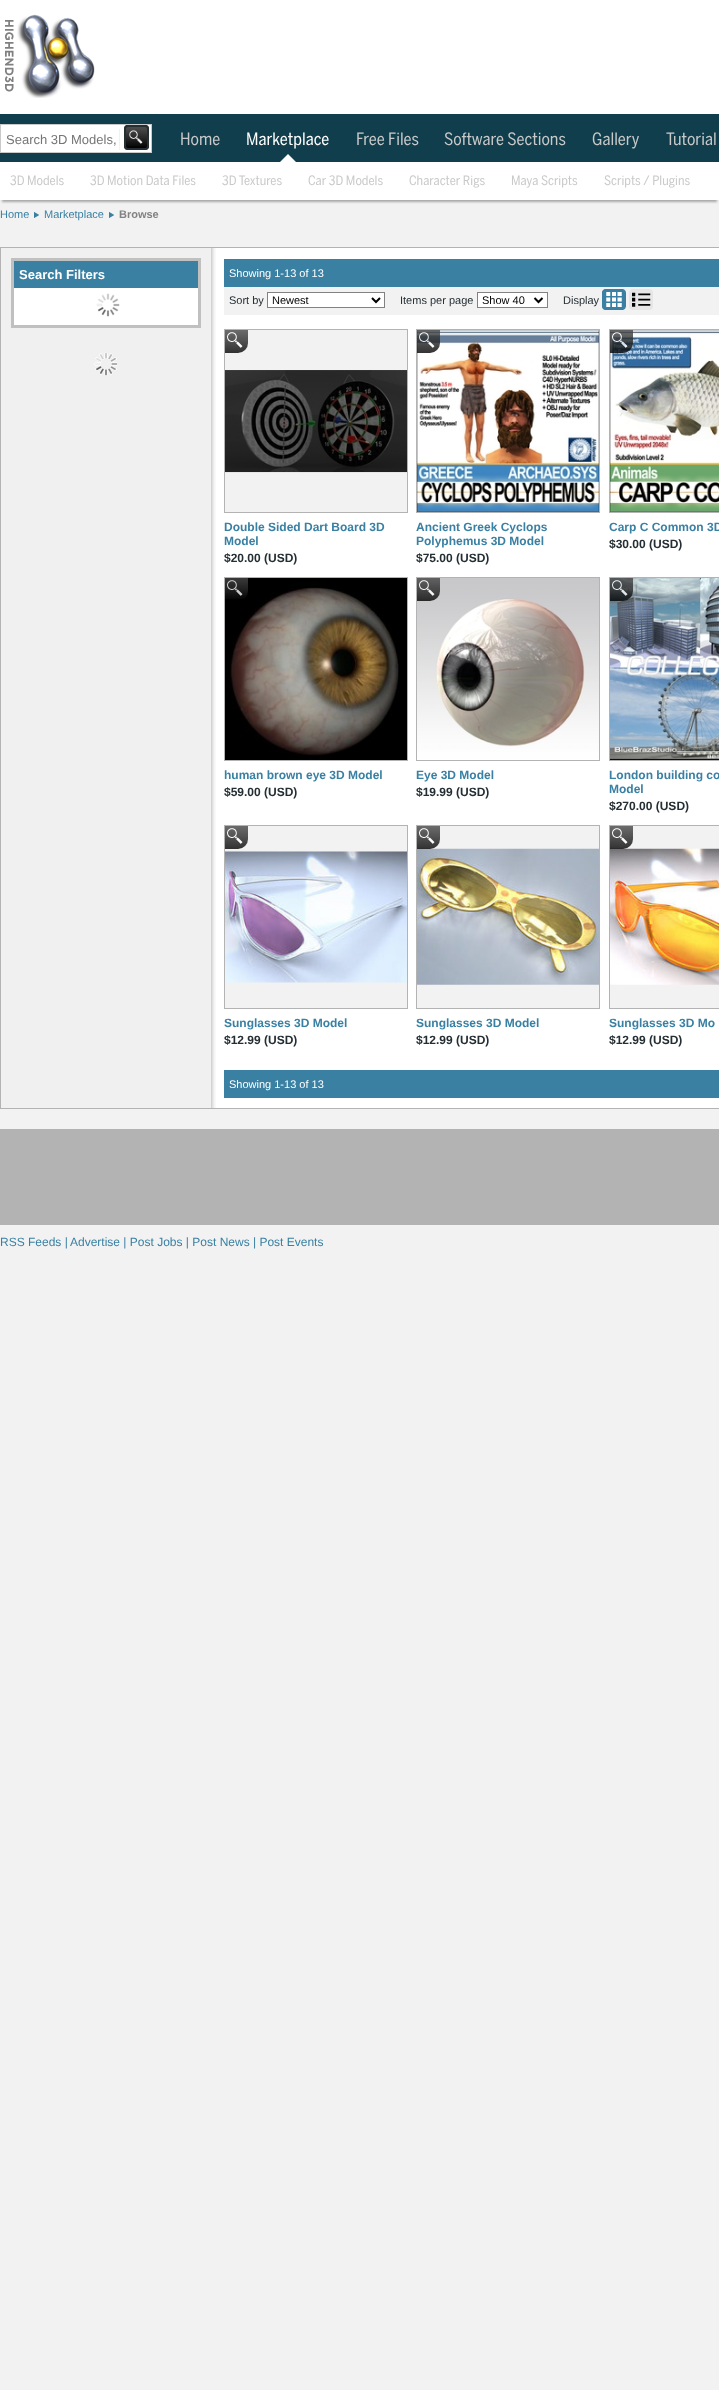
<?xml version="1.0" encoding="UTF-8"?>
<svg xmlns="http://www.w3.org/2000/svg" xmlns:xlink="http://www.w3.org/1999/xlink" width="719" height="2390">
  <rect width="100%" height="100%" fill="#f2f2f2" />
  <rect width="719" height="114" fill="#ffffff" />
  <image x="5" y="14" width="90" height="84" xlink:href="image1.png" />
  <rect y="114" width="719" height="48" fill="#103e4c" />
  <path d="M 296 162 h -16 l 8 -8 z" fill="#ffffff" />
  <rect x="2" y="168" width="715" height="34" fill="#000000" fill-opacity="0.3" filter="blur(1px)" />
  <rect y="162" width="719" height="38" fill="#ffffff" />
  <rect x="0.5" y="124.5" width="151" height="28" fill="#ffffff" stroke="#c9c9c9" />
  <rect x="119" y="129" width="1" height="21" fill="#f2f2f2" />
  <image x="124" y="125" width="25" height="25" xlink:href="image2.png" />
  <rect x="125" y="126" width="23" height="23" rx="3" fill="none" stroke="#242e33" stroke-width="2" />
  <image x="34" y="212" width="5" height="6" xlink:href="image3.png" />
  <image x="109" y="212" width="5" height="6" xlink:href="image3.png" />
  <rect x="216" y="248" width="503" height="860" fill="#ffffff" />
  <image x="1" y="248" width="215" height="860" xlink:href="image4.png" />
  <rect x="0.5" y="247.5" width="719" height="861" fill="none" stroke="#b3b3b3" />
  <rect x="12.5" y="259.5" width="187" height="67" fill="none" stroke="#c0c0c0" stroke-width="3" />
  <rect x="14" y="261" width="184" height="27" fill="#3980a3" />
  <rect x="14" y="288" width="184" height="37" fill="#ffffff" />
  <image x="96" y="293" width="24" height="24" xlink:href="image5.png" />
  <image x="94" y="352" width="23" height="24" xlink:href="image6.png" />
  <rect x="224" y="259" width="495" height="28" fill="#3980a3" />
  <rect x="224" y="287" width="495" height="28" fill="#f2f2f2" />
  <rect x="267.5" y="292.5" width="117" height="15" fill="#ffffff" stroke="#828282" />
  <path d="M 372 298 l 4 4 l 4 -4" fill="none" stroke="#000000" stroke-width="2" />
  <rect x="477.5" y="292.5" width="70" height="15" fill="#ffffff" stroke="#828282" />
  <path d="M 534.5 298 l 4 4 l 4 -4" fill="none" stroke="#000000" stroke-width="2" />
  <image x="602" y="289" width="24" height="21" xlink:href="image7.png" />
  <image x="629" y="289" width="24" height="21" xlink:href="image8.png" />
  <rect x="224.5" y="329.5" width="183" height="183" fill="none" stroke="#b3b3b3" />
  <rect x="225" y="330" width="182" height="182" fill="#f2f2f2" />
  <image x="225" y="370" width="182" height="103" xlink:href="image9.png" />
  <image x="225" y="330" width="23" height="23" xlink:href="image10.png" />
  <rect x="416.5" y="329.5" width="183" height="183" fill="none" stroke="#b3b3b3" />
  <image x="417" y="330" width="182" height="182" xlink:href="image11.png" />
  <image x="417" y="330" width="23" height="23" xlink:href="image12.png" />
  <rect x="609.5" y="329.5" width="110" height="183" fill="none" stroke="#b3b3b3" />
  <image x="610" y="330" width="109" height="182" xlink:href="image13.png" />
  <image x="610" y="330" width="23" height="23" xlink:href="image14.png" />
  <rect x="224.5" y="577.5" width="183" height="183" fill="none" stroke="#b3b3b3" />
  <image x="225" y="578" width="182" height="182" xlink:href="image15.png" />
  <image x="225" y="578" width="23" height="21" xlink:href="image16.png" />
  <rect x="416.5" y="577.5" width="183" height="183" fill="none" stroke="#b3b3b3" />
  <image x="417" y="578" width="182" height="182" xlink:href="image17.png" />
  <image x="417" y="578" width="23" height="23" xlink:href="image18.png" />
  <rect x="609.5" y="577.5" width="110" height="183" fill="none" stroke="#b3b3b3" />
  <image x="610" y="578" width="109" height="182" xlink:href="image19.png" />
  <image x="610" y="578" width="23" height="23" xlink:href="image20.png" />
  <rect x="224.5" y="825.5" width="183" height="183" fill="none" stroke="#b3b3b3" />
  <rect x="225" y="826" width="182" height="182" fill="#f2f2f2" />
  <image x="225" y="851" width="182" height="132" xlink:href="image21.png" />
  <image x="225" y="826" width="23" height="23" xlink:href="image10.png" />
  <rect x="416.5" y="825.5" width="183" height="183" fill="none" stroke="#b3b3b3" />
  <rect x="417" y="826" width="182" height="182" fill="#f2f2f2" />
  <image x="417" y="848" width="182" height="137" xlink:href="image22.png" />
  <image x="417" y="826" width="23" height="23" xlink:href="image23.png" />
  <rect x="609.5" y="825.5" width="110" height="183" fill="none" stroke="#b3b3b3" />
  <rect x="610" y="826" width="109" height="182" fill="#f2f2f2" />
  <image x="610" y="848" width="109" height="137" xlink:href="image24.png" />
  <image x="610" y="826" width="23" height="23" xlink:href="image25.png" />
  <rect x="224" y="1070" width="495" height="28" fill="#3980a3" />
  <rect y="1129" width="719" height="96" fill="#b3b3b3" />
  <text x="180" y="145" style="font-family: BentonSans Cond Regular; font-size: 17px; fill: #c9c9c9">Home</text>
  <text x="246" y="145" style="font-family: BentonSans Cond Regular; font-size: 17px; fill: #ffffff">Marketplace</text>
  <text x="356" y="145" style="font-family: BentonSans Cond Regular; font-size: 17px; fill: #c9c9c9">Free Files</text>
  <text x="444" y="145" style="font-family: BentonSans Cond Regular; font-size: 17px; fill: #c9c9c9">Software Sections</text>
  <text x="592" y="145" style="font-family: BentonSans Cond Regular; font-size: 17px; fill: #c9c9c9">Gallery</text>
  <text x="666" y="145" style="font-family: BentonSans Cond Regular; font-size: 17px; fill: #c9c9c9">Tutorial</text>
  <text x="10" y="185" style="font-family: BentonSans Cond Regular; font-size: 13px; fill: #c9c9c9">3D Models</text>
  <text x="90" y="185" style="font-family: BentonSans Cond Regular; font-size: 13px; fill: #c9c9c9">3D Motion Data Files</text>
  <text x="222" y="185" style="font-family: BentonSans Cond Regular; font-size: 13px; fill: #c9c9c9">3D Textures</text>
  <text x="308" y="185" style="font-family: BentonSans Cond Regular; font-size: 13px; fill: #c9c9c9">Car 3D Models</text>
  <text x="409" y="185" style="font-family: BentonSans Cond Regular; font-size: 13px; fill: #c9c9c9">Character Rigs</text>
  <text x="511" y="185" style="font-family: BentonSans Cond Regular; font-size: 13px; fill: #c9c9c9">Maya Scripts</text>
  <text x="604" y="185" style="font-family: BentonSans Cond Regular; font-size: 13px; fill: #c9c9c9">Scripts / Plugins</text>
  <text x="6" y="144" style="font-family: Liberation Sans; font-size: 13px; fill: #757575">Search 3D Models,</text>
  <text x="0" y="218" style="font-family: Liberation Sans; font-size: 11px; fill: #3980a3">Home</text>
  <text x="44" y="218" style="font-family: Liberation Sans; font-size: 11px; fill: #3980a3">Marketplace</text>
  <text x="119" y="218" style="font-family: Liberation Sans; font-size: 11px; font-weight: bold; fill: #828282">Browse</text>
  <text x="19" y="279" style="font-family: Liberation Sans; font-size: 13px; font-weight: bold; fill: #ffffff">Search Filters</text>
  <text x="229" y="277" style="font-family: Liberation Sans; font-size: 11px; fill: #ffffff">Showing 1-13 of 13</text>
  <text x="229" y="304" style="font-family: Liberation Sans; font-size: 11px; fill: #242e33">Sort by</text>
  <text x="272" y="304" style="font-family: Liberation Sans; font-size: 11px; fill: #000000">Newest</text>
  <text x="400" y="304" style="font-family: Liberation Sans; font-size: 11px; fill: #242e33">Items per page</text>
  <text x="482" y="304" style="font-family: Liberation Sans; font-size: 11px; fill: #000000">Show 40</text>
  <text x="563" y="304" style="font-family: Liberation Sans; font-size: 11px; fill: #242e33">Display</text>
  <text x="224" y="531" style="font-family: Liberation Sans; font-size: 12px; font-weight: bold; fill: #3980a3">Double Sided Dart Board 3D</text>
  <text x="224" y="545" style="font-family: Liberation Sans; font-size: 12px; font-weight: bold; fill: #3980a3">Model</text>
  <text x="224" y="562" style="font-family: Liberation Sans; font-size: 12px; font-weight: bold; fill: #242e33">$20.00 (USD)</text>
  <text x="416" y="531" style="font-family: Liberation Sans; font-size: 12px; font-weight: bold; fill: #3980a3">Ancient Greek Cyclops</text>
  <text x="416" y="545" style="font-family: Liberation Sans; font-size: 12px; font-weight: bold; fill: #3980a3">Polyphemus 3D Model</text>
  <text x="416" y="562" style="font-family: Liberation Sans; font-size: 12px; font-weight: bold; fill: #242e33">$75.00 (USD)</text>
  <text x="609" y="531" style="font-family: Liberation Sans; font-size: 12px; font-weight: bold; fill: #3980a3">Carp C Common 3D</text>
  <text x="609" y="548" style="font-family: Liberation Sans; font-size: 12px; font-weight: bold; fill: #242e33">$30.00 (USD)</text>
  <text x="224" y="779" style="font-family: Liberation Sans; font-size: 12px; font-weight: bold; fill: #3980a3">human brown eye 3D Model</text>
  <text x="224" y="796" style="font-family: Liberation Sans; font-size: 12px; font-weight: bold; fill: #242e33">$59.00 (USD)</text>
  <text x="416" y="779" style="font-family: Liberation Sans; font-size: 12px; font-weight: bold; fill: #3980a3">Eye 3D Model</text>
  <text x="416" y="796" style="font-family: Liberation Sans; font-size: 12px; font-weight: bold; fill: #242e33">$19.99 (USD)</text>
  <text x="609" y="779" style="font-family: Liberation Sans; font-size: 12px; font-weight: bold; fill: #3980a3">London building co</text>
  <text x="609" y="793" style="font-family: Liberation Sans; font-size: 12px; font-weight: bold; fill: #3980a3">Model</text>
  <text x="609" y="810" style="font-family: Liberation Sans; font-size: 12px; font-weight: bold; fill: #242e33">$270.00 (USD)</text>
  <text x="224" y="1027" style="font-family: Liberation Sans; font-size: 12px; font-weight: bold; fill: #3980a3">Sunglasses 3D Model</text>
  <text x="224" y="1044" style="font-family: Liberation Sans; font-size: 12px; font-weight: bold; fill: #242e33">$12.99 (USD)</text>
  <text x="416" y="1027" style="font-family: Liberation Sans; font-size: 12px; font-weight: bold; fill: #3980a3">Sunglasses 3D Model</text>
  <text x="416" y="1044" style="font-family: Liberation Sans; font-size: 12px; font-weight: bold; fill: #242e33">$12.99 (USD)</text>
  <text x="609" y="1027" style="font-family: Liberation Sans; font-size: 12px; font-weight: bold; fill: #3980a3">Sunglasses 3D Mo</text>
  <text x="609" y="1044" style="font-family: Liberation Sans; font-size: 12px; font-weight: bold; fill: #242e33">$12.99 (USD)</text>
  <text x="229" y="1088" style="font-family: Liberation Sans; font-size: 11px; fill: #ffffff">Showing 1-13 of 13</text>
  <text x="0" y="1246" style="font-family: Liberation Sans; font-size: 12px; fill: #3980a3">RSS Feeds |</text>
  <text x="70" y="1246" style="font-family: Liberation Sans; font-size: 12px; fill: #3980a3">Advertise | Post Jobs | Post News | Post Events</text>
</svg>
